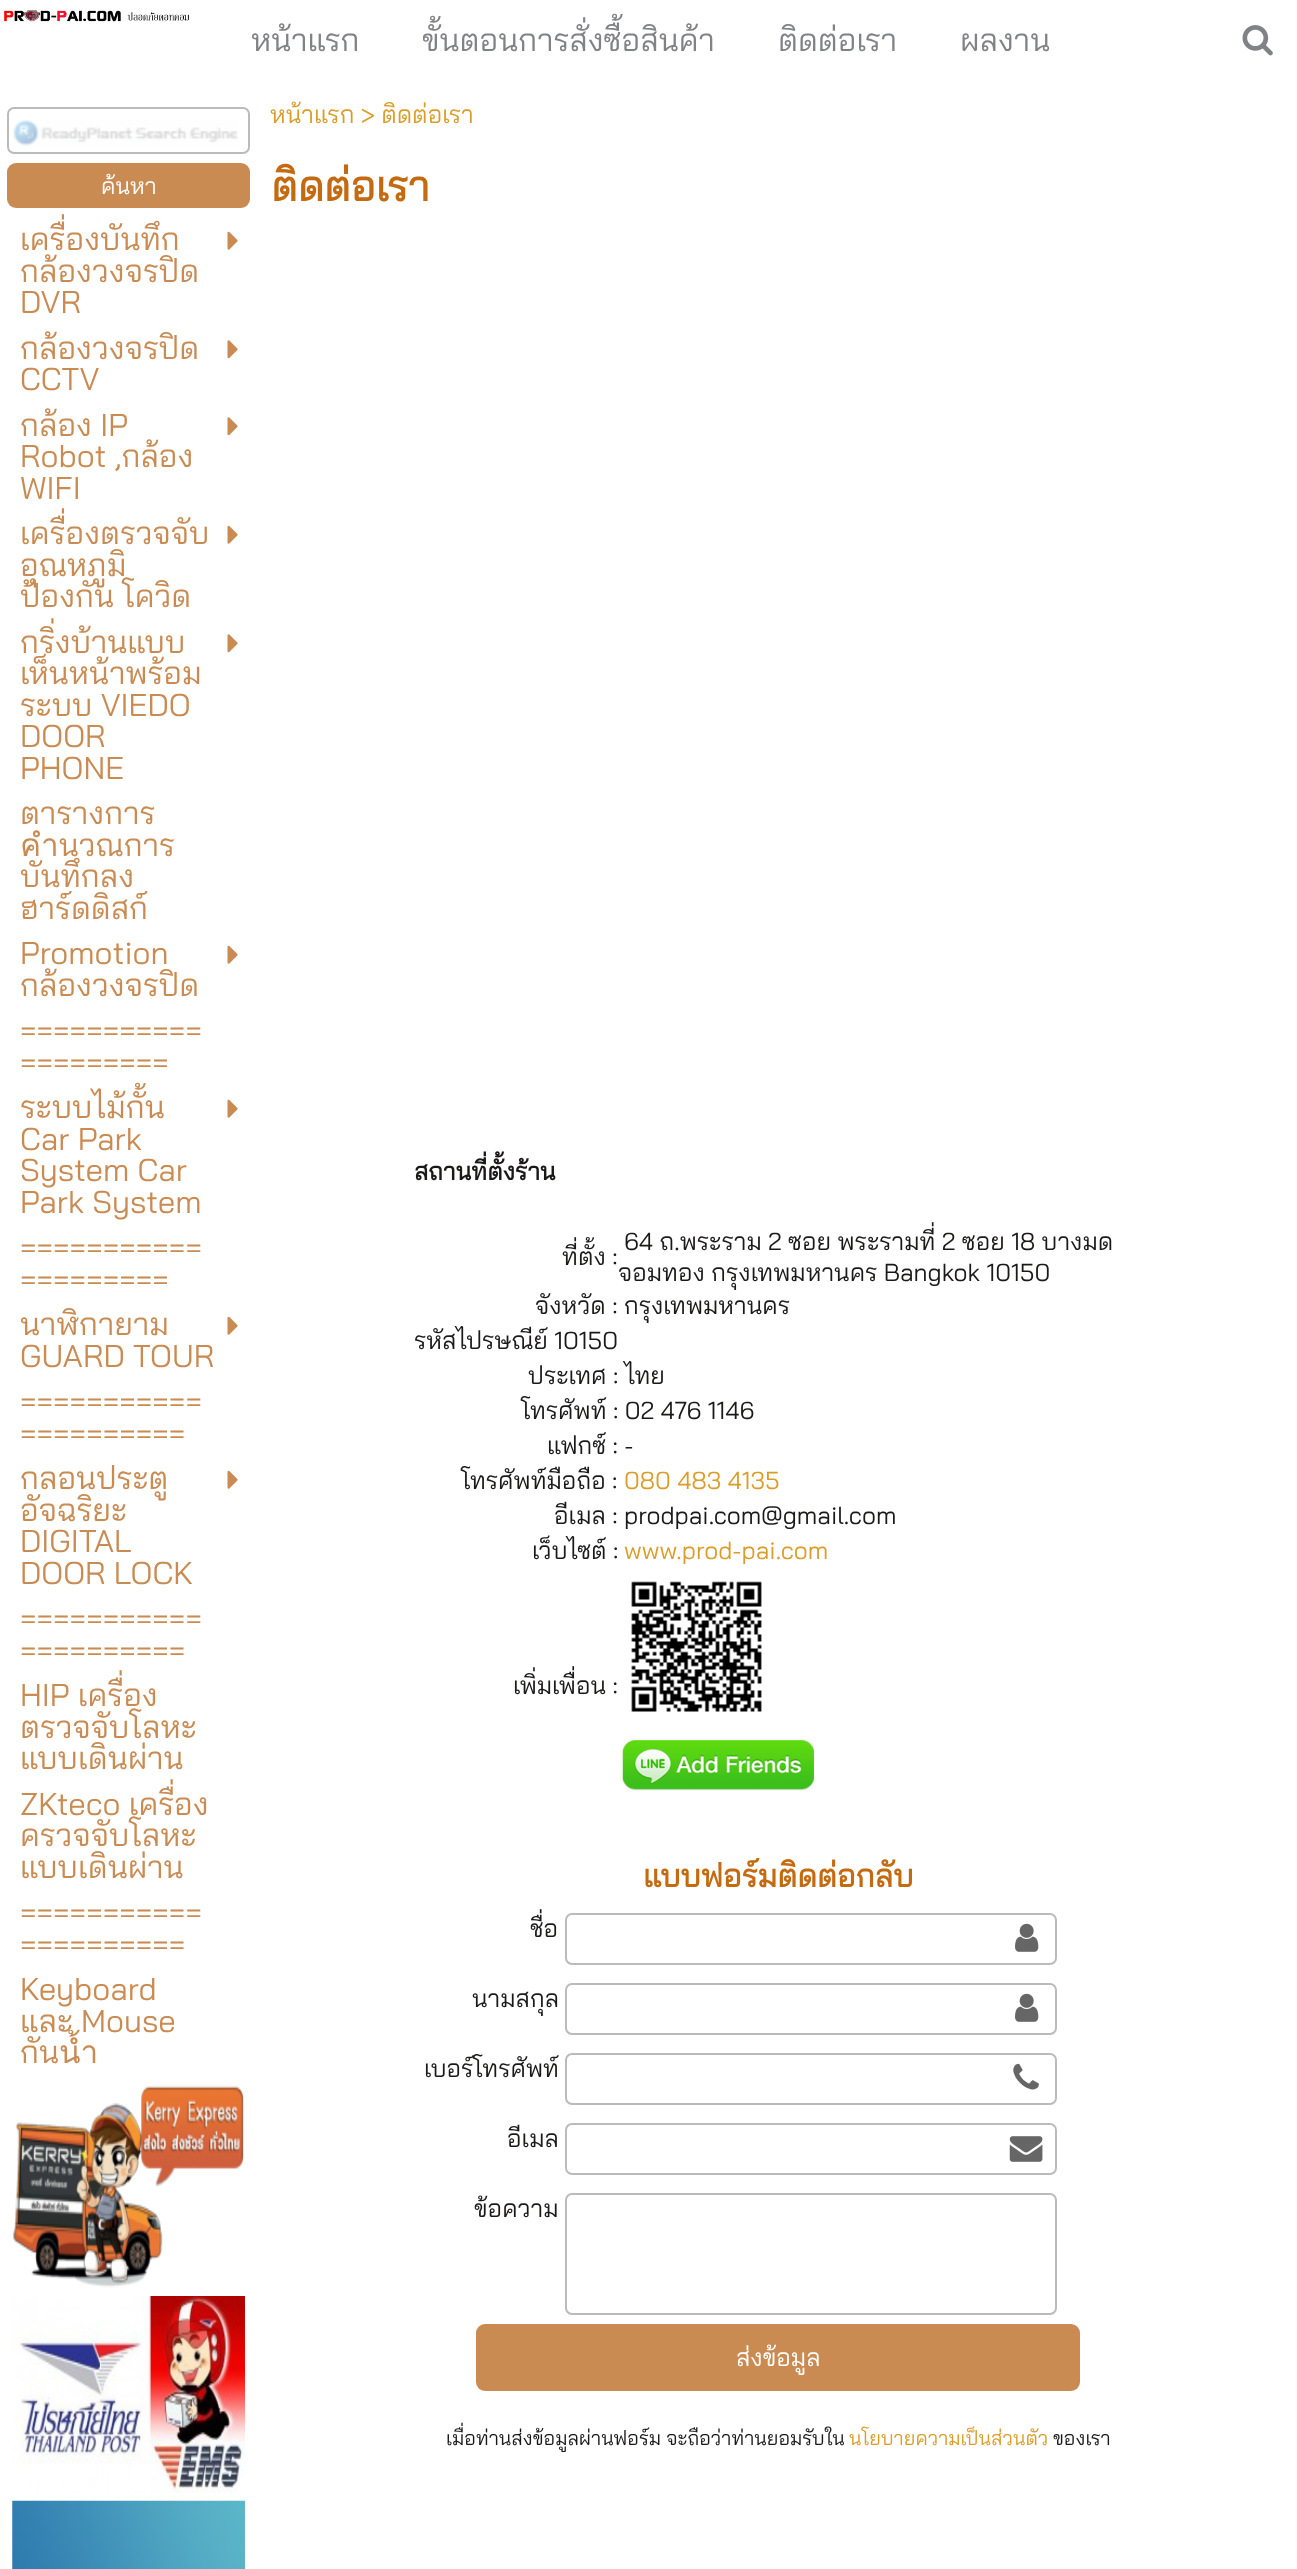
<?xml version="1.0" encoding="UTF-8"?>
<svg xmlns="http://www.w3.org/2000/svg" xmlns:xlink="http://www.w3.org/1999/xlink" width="1297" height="2569">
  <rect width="100%" height="100%" fill="#ffffff" />
  <image x="4" y="10" width="185" height="12" xlink:href="image1.png" />
  <image x="1242" y="25" width="31" height="31" xlink:href="image2.png" />
  <image x="13" y="120" width="225" height="26" xlink:href="image3.png" />
  <rect x="8" y="108" width="241" height="45" rx="6" fill="none" stroke="#bbbbbb" stroke-width="2" />
  <rect x="7" y="163" width="243" height="45" rx="9" fill="#ca8b53" />
  <image x="227" y="231" width="11" height="19" xlink:href="image4.png" />
  <image x="227" y="340" width="11" height="19" xlink:href="image5.png" />
  <image x="227" y="417" width="11" height="19" xlink:href="image5.png" />
  <image x="227" y="525" width="11" height="19" xlink:href="image4.png" />
  <image x="227" y="634" width="11" height="19" xlink:href="image5.png" />
  <image x="227" y="945" width="11" height="19" xlink:href="image4.png" />
  <image x="227" y="1099" width="11" height="19" xlink:href="image4.png" />
  <image x="227" y="1316" width="11" height="19" xlink:href="image4.png" />
  <image x="227" y="1470" width="11" height="19" xlink:href="image4.png" />
  <image x="13" y="2085" width="231" height="203" xlink:href="image6.png" />
  <image x="12" y="2296" width="233" height="197" xlink:href="image7.png" />
  <image x="12" y="2500" width="233" height="69" xlink:href="image8.png" />
  <image x="631" y="1581" width="131" height="131" xlink:href="image9.png" />
  <image x="622" y="1740" width="192" height="51" xlink:href="image10.png" />
  <rect x="566" y="1914" width="490" height="50" rx="6" fill="none" stroke="#bbbbbb" stroke-width="2" />
  <image x="1015" y="1923" width="24" height="29" xlink:href="image11.png" />
  <rect x="566" y="1984" width="490" height="50" rx="6" fill="none" stroke="#bbbbbb" stroke-width="2" />
  <image x="1015" y="1993" width="24" height="29" xlink:href="image11.png" />
  <rect x="566" y="2054" width="490" height="50" rx="6" fill="none" stroke="#bbbbbb" stroke-width="2" />
  <image x="1013" y="2063" width="26" height="27" xlink:href="image12.png" />
  <rect x="566" y="2124" width="490" height="50" rx="6" fill="none" stroke="#bbbbbb" stroke-width="2" />
  <image x="1009" y="2136" width="34" height="26" xlink:href="image13.png" />
  <rect x="566" y="2194" width="490" height="120" rx="6" fill="none" stroke="#bbbbbb" stroke-width="2" />
  <rect x="476" y="2324" width="604" height="67" rx="9" fill="#ca8b53" />
  <text x="251" y="51" style="font-family: Bai Jamjuree; font-size: 31.5px; fill: #808285">หน้าแรก</text>
  <text x="422" y="51" style="font-family: Bai Jamjuree; font-size: 31.5px; fill: #808285">ขั้นตอนการสั่งซื้อสินค้า</text>
  <text x="778" y="51" style="font-family: Bai Jamjuree; font-size: 31.5px; fill: #808285">ติดต่อเรา</text>
  <text x="960" y="51" style="font-family: Bai Jamjuree; font-size: 31.5px; fill: #808285">ผลงาน</text>
  <text x="270" y="123" style="font-family: Bai Jamjuree; font-size: 24.5px; fill: #db9d29">หน้าแรก &gt; ติดต่อเรา</text>
  <text x="101" y="194" style="font-family: Bai Jamjuree; font-size: 23px; fill: #ffffff">ค้นหา</text>
  <text x="20" y="250" style="font-family: Bai Jamjuree; font-size: 31.5px; fill: #ca8b53">เครื่องบันทึก</text>
  <text x="20" y="282" style="font-family: Bai Jamjuree; font-size: 31.5px; fill: #ca8b53">กล้องวงจรปิด</text>
  <text x="20" y="313" style="font-family: Bai Jamjuree; font-size: 31.5px; fill: #ca8b53">DVR</text>
  <text x="20" y="359" style="font-family: Bai Jamjuree; font-size: 31.5px; fill: #ca8b53">กล้องวงจรปิด</text>
  <text x="20" y="390" style="font-family: Bai Jamjuree; font-size: 31.5px; fill: #ca8b53">CCTV</text>
  <text x="20" y="436" style="font-family: Bai Jamjuree; font-size: 31.5px; fill: #ca8b53">กล้อง IP</text>
  <text x="20" y="467" style="font-family: Bai Jamjuree; font-size: 31.5px; fill: #ca8b53">Robot ,กล้อง</text>
  <text x="20" y="499" style="font-family: Bai Jamjuree; font-size: 31.5px; fill: #ca8b53">WIFI</text>
  <text x="20" y="544" style="font-family: Bai Jamjuree; font-size: 31.5px; fill: #ca8b53">เครื่องตรวจจับ</text>
  <text x="20" y="576" style="font-family: Bai Jamjuree; font-size: 31.5px; fill: #ca8b53">อุณหภูมิ</text>
  <text x="20" y="607" style="font-family: Bai Jamjuree; font-size: 31.5px; fill: #ca8b53">ป้องกัน โควิด</text>
  <text x="20" y="653" style="font-family: Bai Jamjuree; font-size: 31.5px; fill: #ca8b53">กริ่งบ้านแบบ</text>
  <text x="20" y="684" style="font-family: Bai Jamjuree; font-size: 31.5px; fill: #ca8b53">เห็นหน้าพร้อม</text>
  <text x="20" y="716" style="font-family: Bai Jamjuree; font-size: 31.5px; fill: #ca8b53">ระบบ VIEDO</text>
  <text x="20" y="747" style="font-family: Bai Jamjuree; font-size: 31.5px; fill: #ca8b53">DOOR</text>
  <text x="20" y="779" style="font-family: Bai Jamjuree; font-size: 31.5px; fill: #ca8b53">PHONE</text>
  <text x="20" y="824" style="font-family: Bai Jamjuree; font-size: 31.5px; fill: #ca8b53">ตารางการ</text>
  <text x="20" y="856" style="font-family: Bai Jamjuree; font-size: 31.5px; fill: #ca8b53">คำนวณการ</text>
  <text x="20" y="887" style="font-family: Bai Jamjuree; font-size: 31.5px; fill: #ca8b53">บันทึกลง</text>
  <text x="20" y="919" style="font-family: Bai Jamjuree; font-size: 31.5px; fill: #ca8b53">ฮาร์ดดิสก์</text>
  <text x="20" y="964" style="font-family: Bai Jamjuree; font-size: 31.5px; fill: #ca8b53">Promotion</text>
  <text x="20" y="996" style="font-family: Bai Jamjuree; font-size: 31.5px; fill: #ca8b53">กล้องวงจรปิด</text>
  <text x="20" y="1041" style="font-family: Bai Jamjuree; font-size: 31.5px; fill: #ca8b53">===========</text>
  <text x="20" y="1073" style="font-family: Bai Jamjuree; font-size: 31.5px; fill: #ca8b53">=========</text>
  <text x="20" y="1118" style="font-family: Bai Jamjuree; font-size: 31.5px; fill: #ca8b53">ระบบไม้กั้น</text>
  <text x="20" y="1150" style="font-family: Bai Jamjuree; font-size: 31.5px; fill: #ca8b53">Car Park</text>
  <text x="20" y="1181" style="font-family: Bai Jamjuree; font-size: 31.5px; fill: #ca8b53">System Car</text>
  <text x="20" y="1213" style="font-family: Bai Jamjuree; font-size: 31.5px; fill: #ca8b53">Park System</text>
  <text x="20" y="1258" style="font-family: Bai Jamjuree; font-size: 31.5px; fill: #ca8b53">===========</text>
  <text x="20" y="1290" style="font-family: Bai Jamjuree; font-size: 31.5px; fill: #ca8b53">=========</text>
  <text x="20" y="1335" style="font-family: Bai Jamjuree; font-size: 31.5px; fill: #ca8b53">นาฬิกายาม</text>
  <text x="20" y="1367" style="font-family: Bai Jamjuree; font-size: 31.5px; fill: #ca8b53">GUARD TOUR</text>
  <text x="20" y="1412" style="font-family: Bai Jamjuree; font-size: 31.5px; fill: #ca8b53">===========</text>
  <text x="20" y="1444" style="font-family: Bai Jamjuree; font-size: 31.5px; fill: #ca8b53">==========</text>
  <text x="20" y="1489" style="font-family: Bai Jamjuree; font-size: 31.5px; fill: #ca8b53">กลอนประตู</text>
  <text x="20" y="1521" style="font-family: Bai Jamjuree; font-size: 31.5px; fill: #ca8b53">อัจฉริยะ</text>
  <text x="20" y="1552" style="font-family: Bai Jamjuree; font-size: 31.5px; fill: #ca8b53">DIGITAL</text>
  <text x="20" y="1584" style="font-family: Bai Jamjuree; font-size: 31.5px; fill: #ca8b53">DOOR LOCK</text>
  <text x="20" y="1629" style="font-family: Bai Jamjuree; font-size: 31.5px; fill: #ca8b53">===========</text>
  <text x="20" y="1661" style="font-family: Bai Jamjuree; font-size: 31.5px; fill: #ca8b53">==========</text>
  <text x="20" y="1706" style="font-family: Bai Jamjuree; font-size: 31.5px; fill: #ca8b53">HIP เครื่อง</text>
  <text x="20" y="1738" style="font-family: Bai Jamjuree; font-size: 31.5px; fill: #ca8b53">ตรวจจับโลหะ</text>
  <text x="20" y="1769" style="font-family: Bai Jamjuree; font-size: 31.5px; fill: #ca8b53">แบบเดินผ่าน</text>
  <text x="20" y="1815" style="font-family: Bai Jamjuree; font-size: 31.5px; fill: #ca8b53">ZKteco เครื่อง</text>
  <text x="20" y="1846" style="font-family: Bai Jamjuree; font-size: 31.5px; fill: #ca8b53">ครวจจับโลหะ</text>
  <text x="20" y="1878" style="font-family: Bai Jamjuree; font-size: 31.5px; fill: #ca8b53">แบบเดินผ่าน</text>
  <text x="20" y="1923" style="font-family: Bai Jamjuree; font-size: 31.5px; fill: #ca8b53">===========</text>
  <text x="20" y="1955" style="font-family: Bai Jamjuree; font-size: 31.5px; fill: #ca8b53">==========</text>
  <text x="20" y="2000" style="font-family: Bai Jamjuree; font-size: 31.5px; fill: #ca8b53">Keyboard</text>
  <text x="20" y="2032" style="font-family: Bai Jamjuree; font-size: 31.5px; fill: #ca8b53">และ Mouse</text>
  <text x="20" y="2063" style="font-family: Bai Jamjuree; font-size: 31.5px; fill: #ca8b53">กันน้ำ</text>
  <text x="271" y="201" style="font-family: Bai Jamjuree; font-size: 42px; font-weight: bold; fill: #c46b12">ติดต่อเรา</text>
  <text x="414" y="1180" style="font-family: Bai Jamjuree; font-size: 24.5px; font-weight: bold; fill: #1a1918">สถานที่ตั้งร้าน</text>
  <text x="562" y="1265" style="font-family: Bai Jamjuree; font-size: 24.5px; fill: #1a1918">ที่ตั้ง :</text>
  <text x="624" y="1250" style="font-family: Bai Jamjuree; font-size: 24.5px; fill: #1a1918">64 ถ.พระราม 2 ซอย พระรามที่ 2 ซอย 18 บางมด</text>
  <text x="618" y="1281" style="font-family: Bai Jamjuree; font-size: 24.5px; fill: #1a1918">จอมทอง กรุงเทพมหานคร Bangkok 10150</text>
  <text x="535" y="1314" style="font-family: Bai Jamjuree; font-size: 24.5px; fill: #1a1918">จังหวัด : กรุงเทพมหานคร</text>
  <text x="414" y="1349" style="font-family: Bai Jamjuree; font-size: 24.5px; fill: #1a1918">รหัสไปรษณีย์ 10150</text>
  <text x="528" y="1384" style="font-family: Bai Jamjuree; font-size: 24.5px; fill: #1a1918">ประเทศ : ไทย</text>
  <text x="521" y="1419" style="font-family: Bai Jamjuree; font-size: 24.5px; fill: #1a1918">โทรศัพท์ : 02 476 1146</text>
  <text x="547" y="1454" style="font-family: Bai Jamjuree; font-size: 24.5px; fill: #1a1918">แฟกซ์ : -</text>
  <text x="461" y="1489" style="font-family: Bai Jamjuree; font-size: 24.5px; fill: #1a1918">โทรศัพท์มือถือ :</text>
  <text x="624" y="1489" style="font-family: Bai Jamjuree; font-size: 24.5px; fill: #db9d29">080 483 4135</text>
  <text x="554" y="1524" style="font-family: Bai Jamjuree; font-size: 24.5px; fill: #1a1918">อีเมล : prodpai.com@gmail.com</text>
  <text x="532" y="1559" style="font-family: Bai Jamjuree; font-size: 24.5px; fill: #1a1918">เว็บไซต์ :</text>
  <text x="624" y="1559" style="font-family: Bai Jamjuree; font-size: 24.5px; fill: #db9d29">www.prod-pai.com</text>
  <text x="513" y="1694" style="font-family: Bai Jamjuree; font-size: 24.5px; fill: #1a1918">เพิ่มเพื่อน :</text>
  <text x="643" y="1887" style="font-family: Bai Jamjuree; font-size: 31.5px; font-weight: bold; fill: #c46b12">แบบฟอร์มติดต่อกลับ</text>
  <text x="530" y="1937" style="font-family: Bai Jamjuree; font-size: 24.5px; fill: #1a1918">ชื่อ</text>
  <text x="472" y="2007" style="font-family: Bai Jamjuree; font-size: 24.5px; fill: #1a1918">นามสกุล</text>
  <text x="424" y="2077" style="font-family: Bai Jamjuree; font-size: 24.5px; fill: #1a1918">เบอร์โทรศัพท์</text>
  <text x="507" y="2147" style="font-family: Bai Jamjuree; font-size: 24.5px; fill: #1a1918">อีเมล</text>
  <text x="474" y="2217" style="font-family: Bai Jamjuree; font-size: 24.5px; fill: #1a1918">ข้อความ</text>
  <text x="736" y="2366" style="font-family: Bai Jamjuree; font-size: 24.5px; fill: #ffffff">ส่งข้อมูล</text>
  <text x="446" y="2445" style="font-family: Bai Jamjuree; font-size: 19.6px; fill: #1a1918">เมื่อท่านส่งข้อมูลผ่านฟอร์ม จะถือว่าท่านยอมรับใน</text>
  <text x="849" y="2445" style="font-family: Bai Jamjuree; font-size: 19.6px; fill: #db9d29">นโยบายความเป็นส่วนตัว</text>
  <text x="1053" y="2445" style="font-family: Bai Jamjuree; font-size: 19.6px; fill: #1a1918">ของเรา</text>
</svg>
